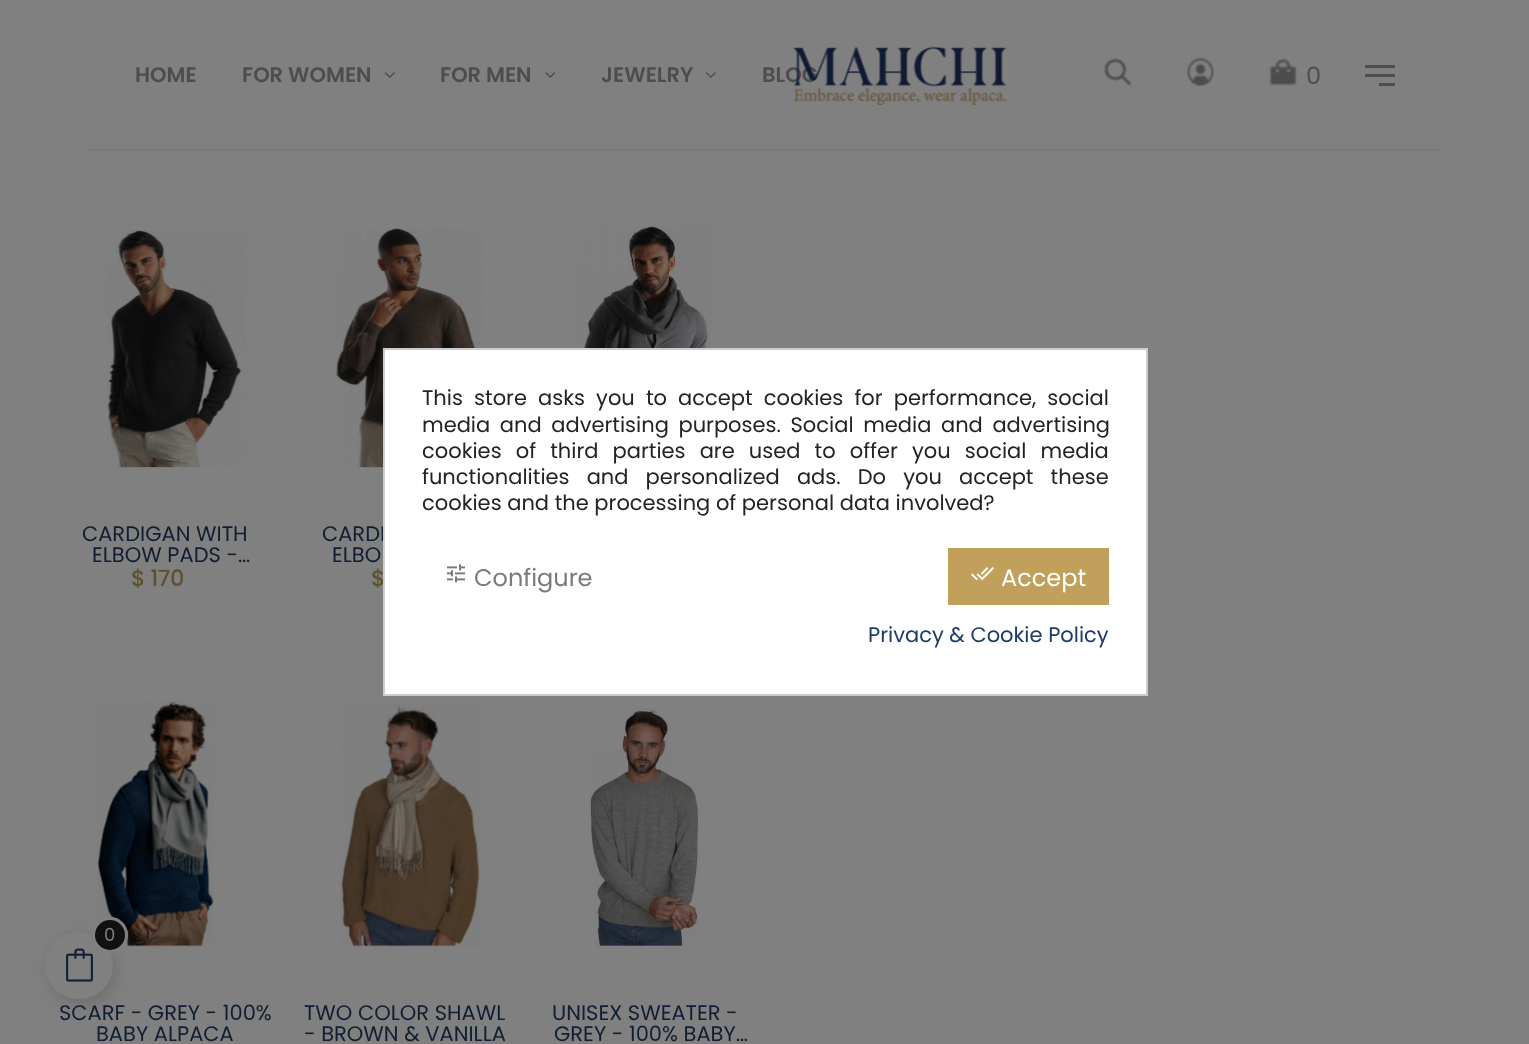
<?xml version="1.0" encoding="UTF-8"?>
<svg xmlns="http://www.w3.org/2000/svg" xmlns:xlink="http://www.w3.org/1999/xlink" width="1529" height="1044">
  <rect width="100%" height="100%" fill="#808080" />
  <rect x="90" y="149" width="1350" height="2" fill="#7a7a7a" />
  <image x="384" y="72" width="11" height="6" xlink:href="image1.png" />
  <image x="545" y="72" width="11" height="6" xlink:href="image2.png" />
  <image x="705" y="72" width="11" height="6" xlink:href="image1.png" />
  <image x="1103" y="58" width="29" height="28" xlink:href="image4.png" />
  <image x="1186" y="58" width="28" height="28" xlink:href="image5.png" />
  <image x="1269" y="58" width="28" height="28" xlink:href="image6.png" />
  <rect x="1365" y="65" width="30" height="3" fill="#4d4d4d" />
  <rect x="1365" y="74" width="30" height="3" fill="#4d4d4d" />
  <rect x="1379" y="83" width="16" height="3" fill="#4d4d4d" />
  <image x="575" y="226" width="138" height="122" xlink:href="image7.png" />
  <image x="107" y="230" width="139" height="238" xlink:href="image8.png" />
  <image x="335" y="228" width="148" height="240" xlink:href="image9.png" />
  <image x="97" y="701" width="117" height="246" xlink:href="image10.png" />
  <image x="340" y="704" width="140" height="243" xlink:href="image11.png" />
  <image x="589" y="709" width="110" height="237" xlink:href="image12.png" />
  <rect x="48" y="936" width="68" height="68" rx="34" fill="#000000" fill-opacity="0.15" filter="blur(7.5px)" />
  <rect x="45" y="932" width="68" height="67" rx="33.5" fill="#808080" />
  <image x="66" y="948" width="27" height="34" xlink:href="image15.png" />
  <circle cx="110" cy="935" r="16.5" fill="none" stroke="#808080" stroke-width="3" />
  <circle cx="110" cy="935" r="15" fill="#111111" />
  <text x="135" y="82" style="font-family: Poppins; font-size: 21px; font-weight: 600; fill: #4d4d4d">HOME</text>
  <text x="242" y="82" style="font-family: Poppins; font-size: 21px; font-weight: 600; fill: #4d4d4d">FOR WOMEN</text>
  <text x="440" y="82" style="font-family: Poppins; font-size: 21px; font-weight: 600; fill: #4d4d4d">FOR MEN</text>
  <text x="601" y="82" style="font-family: Poppins; font-size: 21px; font-weight: 600; fill: #4d4d4d">JEWELRY</text>
  <text x="762" y="82" style="font-family: Poppins; font-size: 21px; font-weight: 600; fill: #4d4d4d">BLOG</text>
  <image x="793" y="46" width="214" height="60" xlink:href="image3.png" />
  <text x="1306" y="84" style="font-family: Poppins; font-size: 24px; fill: #4d4d4d">0</text>
  <text x="82" y="541" style="font-family: Poppins; font-size: 21px; fill: #0f1e33">CARDIGAN WITH</text>
  <text x="92" y="562" style="font-family: Poppins; font-size: 21px; fill: #0f1e33">ELBOW PADS -…</text>
  <text x="131" y="586" style="font-family: Poppins; font-size: 22.5px; font-weight: 500; letter-spacing: -0.5px; fill: #60502d">$ 170</text>
  <text x="322" y="541" style="font-family: Poppins; font-size: 21px; fill: #0f1e33">CARDI</text>
  <text x="332" y="562" style="font-family: Poppins; font-size: 21px; fill: #0f1e33">ELBO</text>
  <text x="371" y="586" style="font-family: Poppins; font-size: 22.5px; font-weight: 500; letter-spacing: -0.5px; fill: #60502d">$</text>
  <text x="59" y="1020" style="font-family: Poppins; font-size: 21px; fill: #0f1e33">SCARF - GREY - 100%</text>
  <text x="96" y="1041" style="font-family: Poppins; font-size: 21px; fill: #0f1e33">BABY ALPACA</text>
  <text x="304" y="1020" style="font-family: Poppins; font-size: 21px; fill: #0f1e33">TWO COLOR SHAWL</text>
  <text x="304" y="1041" style="font-family: Poppins; font-size: 21px; fill: #0f1e33">- BROWN &amp; VANILLA</text>
  <text x="552" y="1020" style="font-family: Poppins; font-size: 21px; fill: #0f1e33">UNISEX SWEATER -</text>
  <text x="554" y="1041" style="font-family: Poppins; font-size: 21px; fill: #0f1e33">GREY - 100% BABY…</text>
  <rect x="384" y="349" width="763" height="346" fill="#ffffff" stroke="#cccccc" stroke-width="2" />
  <text x="422" y="405" word-spacing="5.5" style="font-family: Poppins; font-size: 21px; fill: #232323">This store asks you to accept cookies for performance, social</text>
  <text x="422" y="432" word-spacing="4" style="font-family: Poppins; font-size: 21px; fill: #232323">media and advertising purposes. Social media and advertising</text>
  <text x="422" y="458" word-spacing="8.5" style="font-family: Poppins; font-size: 21px; fill: #232323">cookies of third parties are used to offer you social media</text>
  <text x="422" y="484" word-spacing="11.5" style="font-family: Poppins; font-size: 21px; fill: #232323">functionalities and personalized ads. Do you accept these</text>
  <text x="422" y="510" style="font-family: Poppins; font-size: 21px; fill: #232323">cookies and the processing of personal data involved?</text>
  <image x="447" y="564" width="18" height="19" xlink:href="image13.png" />
  <text x="474" y="586" style="font-family: Poppins; font-size: 24px; fill: #7a7a7a">Configure</text>
  <rect x="948" y="548" width="161" height="57" fill="#c0a05a" />
  <image x="971" y="567" width="24" height="14" xlink:href="image14.png" />
  <text x="1001" y="586" style="font-family: Poppins; font-size: 24px; fill: #ffffff">Accept</text>
  <text x="868" y="642" style="font-family: Poppins; font-size: 21px; fill: #1e3b66">Privacy &amp; Cookie Policy</text>
  <text x="104" y="941" style="font-family: Poppins; font-size: 18px; fill: #808080">0</text>
</svg>
